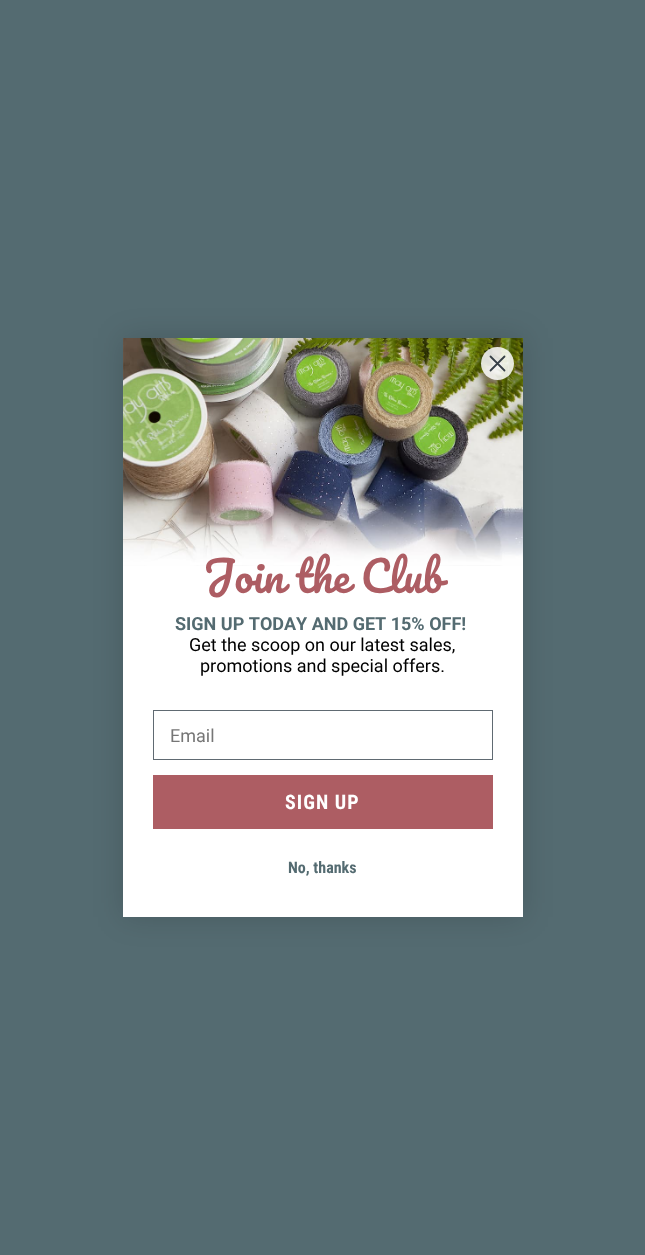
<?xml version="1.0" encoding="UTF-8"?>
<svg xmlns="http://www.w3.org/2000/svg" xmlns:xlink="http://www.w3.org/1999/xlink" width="645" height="1255">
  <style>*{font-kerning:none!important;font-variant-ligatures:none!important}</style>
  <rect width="100%" height="100%" fill="#546b71" />
  <rect x="123" y="338" width="400" height="579" fill="#000000" fill-opacity="0.15" filter="blur(15px)" />
  <image x="123" y="338" width="400" height="228" xlink:href="image1.png" />
  <circle cx="497.5" cy="363.5" r="16.5" fill="#ffffff" fill-opacity="0.85" />
  <path d="M 490.5 356.5 l 14 14 m -14 0 l 14 -14 z" fill="none" stroke="#373f47" stroke-width="1.8" stroke-linecap="round" stroke-linejoin="round" />
  <rect x="123" y="566" width="400" height="351" fill="#ffffff" />
  <rect x="153.5" y="710.5" width="339" height="49" fill="none" stroke="#606a72" />
  <rect x="153" y="775" width="340" height="54" fill="#ad5d63" />
  <text x="203" y="593" style="font-family: Pacifico; font-size: 42px; fill: #ad5d63">Join the Club</text>
  <text x="175" y="630" style="font-family: Roboto; font-size: 18px; font-weight: bold; fill: #546b71">SIGN UP TODAY AND GET 15% OFF!</text>
  <text x="189" y="651" style="font-family: Roboto; font-size: 18px; fill: #000000">Get the scoop on our latest sales,</text>
  <text x="200" y="672" style="font-family: Roboto; font-size: 18px; fill: #000000">promotions and special offers.</text>
  <text x="170" y="742" style="font-family: Roboto; font-size: 18px; fill: #767676">Email</text>
  <text x="285" y="809" style="font-family: Roboto Condensed; font-size: 20px; font-weight: bold; letter-spacing: 1px; fill: #ffffff">SIGN UP</text>
  <text x="288" y="873" style="font-family: Roboto Condensed; font-size: 16px; font-weight: bold; fill: #546b71">No, thanks</text>
</svg>
